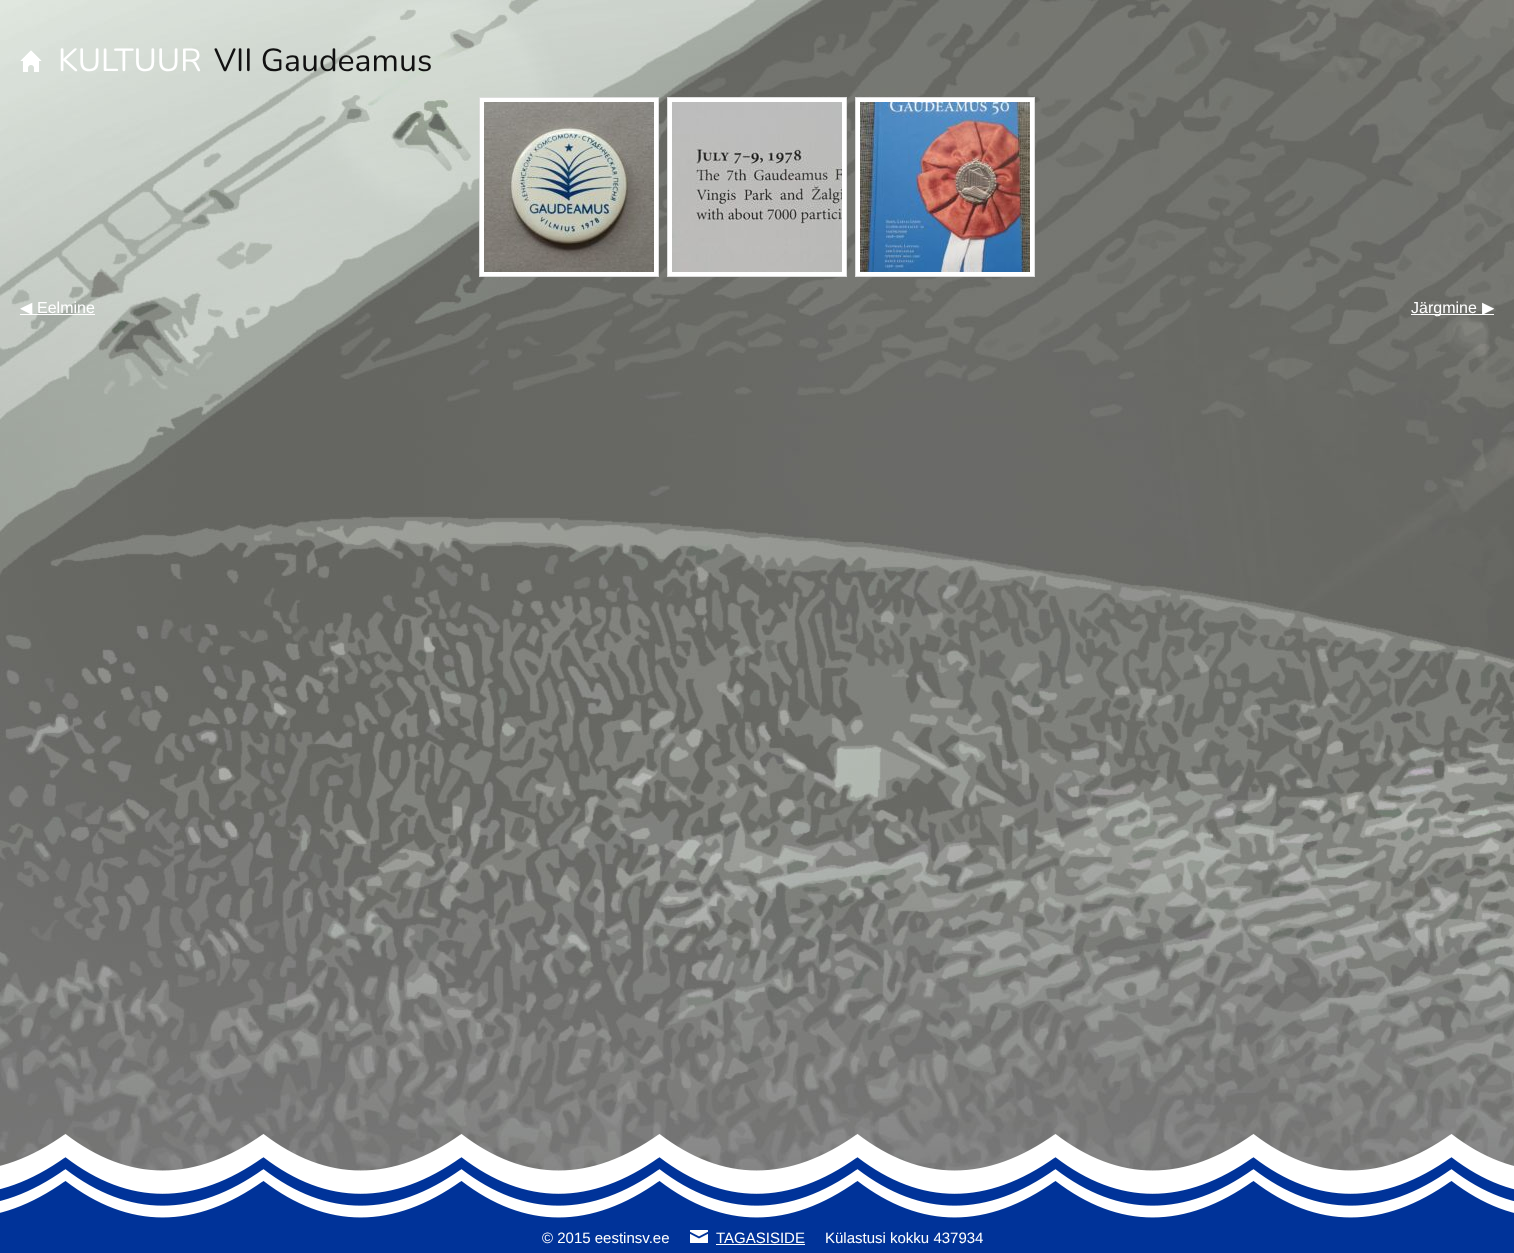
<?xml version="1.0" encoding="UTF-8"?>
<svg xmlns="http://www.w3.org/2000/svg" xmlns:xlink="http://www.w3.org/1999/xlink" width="1514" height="1253">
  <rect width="100%" height="100%" fill="#ffffff" />
  <image x="0" y="0" width="1514" height="1171" xlink:href="image1.png" />
  <image x="20" y="50" width="22" height="22" xlink:href="image2.png" />
  <rect x="479.5" y="97.5" width="179" height="179" fill="none" stroke="#dddddd" />
  <rect x="480" y="98" width="178" height="178" fill="#ffffff" />
  <image x="484" y="102" width="170" height="170" xlink:href="image3.png" />
  <rect x="667.5" y="97.5" width="179" height="179" fill="none" stroke="#dddddd" />
  <rect x="668" y="98" width="178" height="178" fill="#ffffff" />
  <image x="672" y="102" width="170" height="170" xlink:href="image4.png" />
  <rect x="855.5" y="97.5" width="179" height="179" fill="none" stroke="#dddddd" />
  <rect x="856" y="98" width="178" height="178" fill="#ffffff" />
  <image x="860" y="102" width="170" height="170" xlink:href="image5.png" />
  <rect x="20" y="314" width="75" height="1" fill="#ffffff" />
  <rect x="1411" y="314" width="83" height="1" fill="#ffffff" />
  <image x="0" y="1134" width="1514" height="119" xlink:href="image6.png" />
  <image x="690" y="1230" width="18" height="13" xlink:href="image7.png" />
  <rect x="716" y="1244" width="89" height="1" fill="#ffffff" />
  <text x="58" y="71" style="font-family: Nunito; font-size: 32px; font-weight: 200; fill: #ffffff">KULTUUR</text>
  <text x="214" y="71" style="font-family: Nunito; font-size: 32px; font-weight: 200; fill: #111111">VII Gaudeamus</text>
  <text x="20" y="313" style="font-family: DejaVu Sans; font-size: 16px; fill: #ffffff">◀</text>
  <text x="37" y="313" style="font-family: Liberation Sans; font-size: 16px; fill: #ffffff">Eelmine</text>
  <text x="1411" y="313" style="font-family: Liberation Sans; font-size: 16px; fill: #ffffff">Järgmine</text>
  <text x="1482" y="313" style="font-family: DejaVu Sans; font-size: 16px; fill: #ffffff">▶</text>
  <text x="542" y="1243" style="font-family: Liberation Sans; font-size: 15px; fill: #ffffff">© 2015 eestinsv.ee</text>
  <text x="716" y="1243" style="font-family: Liberation Sans; font-size: 15px; fill: #ffffff">TAGASISIDE</text>
  <text x="825" y="1243" style="font-family: Liberation Sans; font-size: 15px; fill: #ffffff">Külastusi kokku 437934</text>
</svg>
